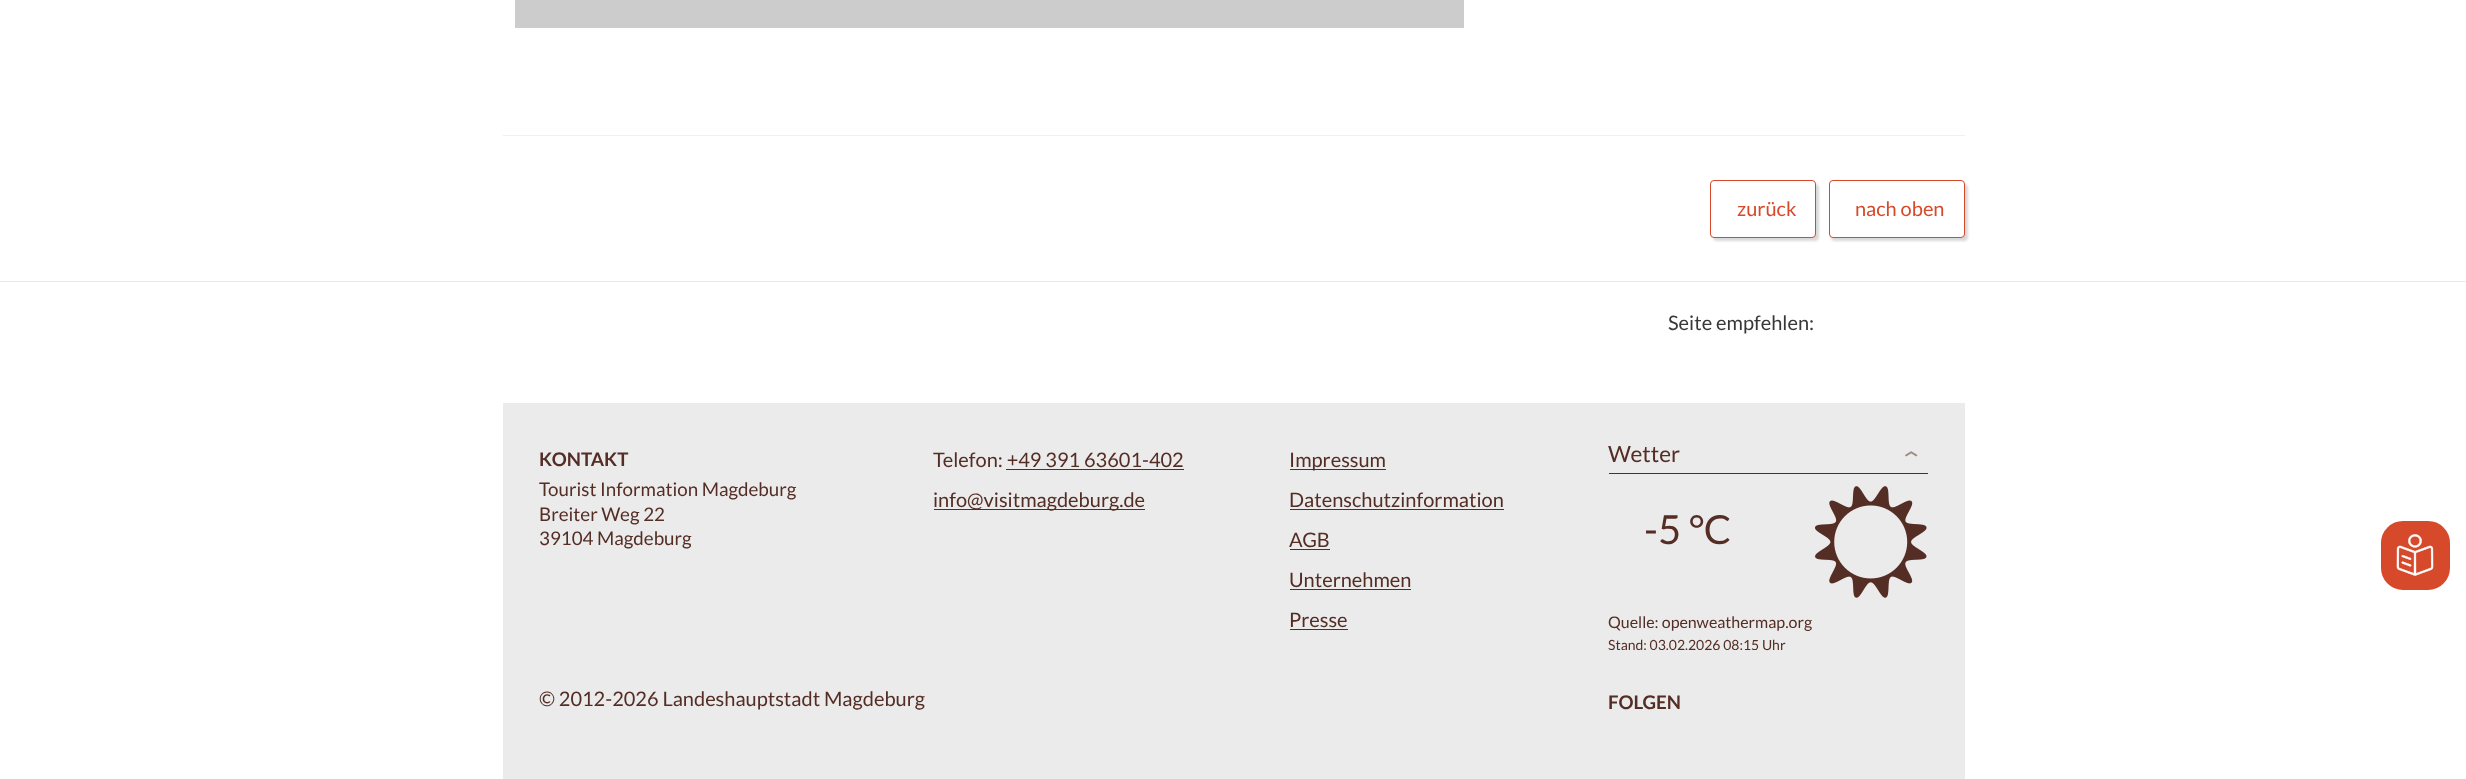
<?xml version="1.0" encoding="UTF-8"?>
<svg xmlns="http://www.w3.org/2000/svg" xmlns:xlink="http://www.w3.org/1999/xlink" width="2466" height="779">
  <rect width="100%" height="100%" fill="#ffffff" />
  <rect x="515" width="949" height="28" fill="#cccccc" />
  <rect x="503" y="135" width="1462" height="1" fill="#f0f0f0" />
  <rect x="1713" y="184" width="106" height="57" rx="4" fill="#000000" fill-opacity="0.15" filter="blur(1px)" />
  <rect x="1710.5" y="180.5" width="105" height="57" rx="3.5" fill="#ffffff" stroke="#d6492a" />
  <rect x="1831" y="184" width="137" height="57" rx="4" fill="#000000" fill-opacity="0.15" filter="blur(1px)" />
  <rect x="1829.5" y="180.5" width="135" height="57" rx="3.5" fill="#ffffff" stroke="#d6492a" />
  <rect y="281" width="2466" height="1" fill="#eaeaea" />
  <rect x="503" y="403" width="1462" height="376" fill="#ebebeb" />
  <rect x="1006" y="469" width="178" height="1" fill="#542d24" />
  <rect x="934" y="509" width="211" height="1" fill="#542d24" />
  <rect x="1290" y="469" width="96" height="1" fill="#542d24" />
  <rect x="1290" y="509" width="214" height="1" fill="#542d24" />
  <rect x="1290" y="549" width="40" height="1" fill="#542d24" />
  <rect x="1290" y="589" width="121" height="1" fill="#542d24" />
  <rect x="1290" y="629" width="58" height="1" fill="#542d24" />
  <rect x="1609" y="473" width="319" height="1" fill="#542d24" />
  <image x="1815" y="486" width="112" height="112" xlink:href="image1.png" />
  <rect x="2379.5" y="519.5" width="72" height="72" rx="23.5" fill="#d6492a" stroke="#ffffff" stroke-width="3" />
  <image x="2396" y="534" width="38" height="42" xlink:href="image2.png" />
  <text x="1737" y="216" style="font-family: Lato; font-size: 20px; fill: #d6492a">zurück</text>
  <text x="1855" y="216" style="font-family: Lato; font-size: 20px; fill: #d6492a">nach oben</text>
  <text x="1668" y="330" style="font-family: Lato; font-size: 20px; fill: #383838">Seite empfehlen:</text>
  <text x="539" y="466" style="font-family: Lato; font-size: 18.75px; font-weight: bold; fill: #542d24">KONTAKT</text>
  <text x="539" y="496" style="font-family: Lato; font-size: 18.75px; fill: #542d24">Tourist Information Magdeburg</text>
  <text x="539" y="521" style="font-family: Lato; font-size: 18.75px; fill: #542d24">Breiter Weg 22</text>
  <text x="539" y="545" style="font-family: Lato; font-size: 18.75px; fill: #542d24">39104 Magdeburg</text>
  <text x="933" y="467" style="font-family: Lato; font-size: 20px; fill: #542d24">Telefon: +49 391 63601-402</text>
  <text x="933" y="507" style="font-family: Lato; font-size: 20px; fill: #542d24">info@visitmagdeburg.de</text>
  <text x="1289" y="467" style="font-family: Lato; font-size: 20px; fill: #542d24">Impressum</text>
  <text x="1289" y="507" style="font-family: Lato; font-size: 20px; fill: #542d24">Datenschutzinformation</text>
  <text x="1289" y="547" style="font-family: Lato; font-size: 20px; fill: #542d24">AGB</text>
  <text x="1289" y="587" style="font-family: Lato; font-size: 20px; fill: #542d24">Unternehmen</text>
  <text x="1289" y="627" style="font-family: Lato; font-size: 20px; fill: #542d24">Presse</text>
  <text x="1608" y="462" style="font-family: Lato; font-size: 22.5px; fill: #542d24">Wetter</text>
  <text x="1903" y="449" transform="rotate(90 1903 449)" style="font-family: Lato; font-size: 31px; fill: #a08c88">‹</text>
  <text x="1644" y="544" style="font-family: Lato; font-size: 40px; fill: #542d24">-5 °C</text>
  <text x="1608" y="628" style="font-family: Lato; font-size: 16px; fill: #542d24">Quelle: openweathermap.org</text>
  <text x="1608" y="650" style="font-family: Lato; font-size: 14px; fill: #542d24">Stand: 03.02.2026 08:15 Uhr</text>
  <text x="539" y="706" style="font-family: Lato; font-size: 20px; fill: #542d24">© 2012-2026 Landeshauptstadt Magdeburg</text>
  <text x="1608" y="709" style="font-family: Lato; font-size: 18.75px; font-weight: bold; fill: #542d24">FOLGEN</text>
</svg>
